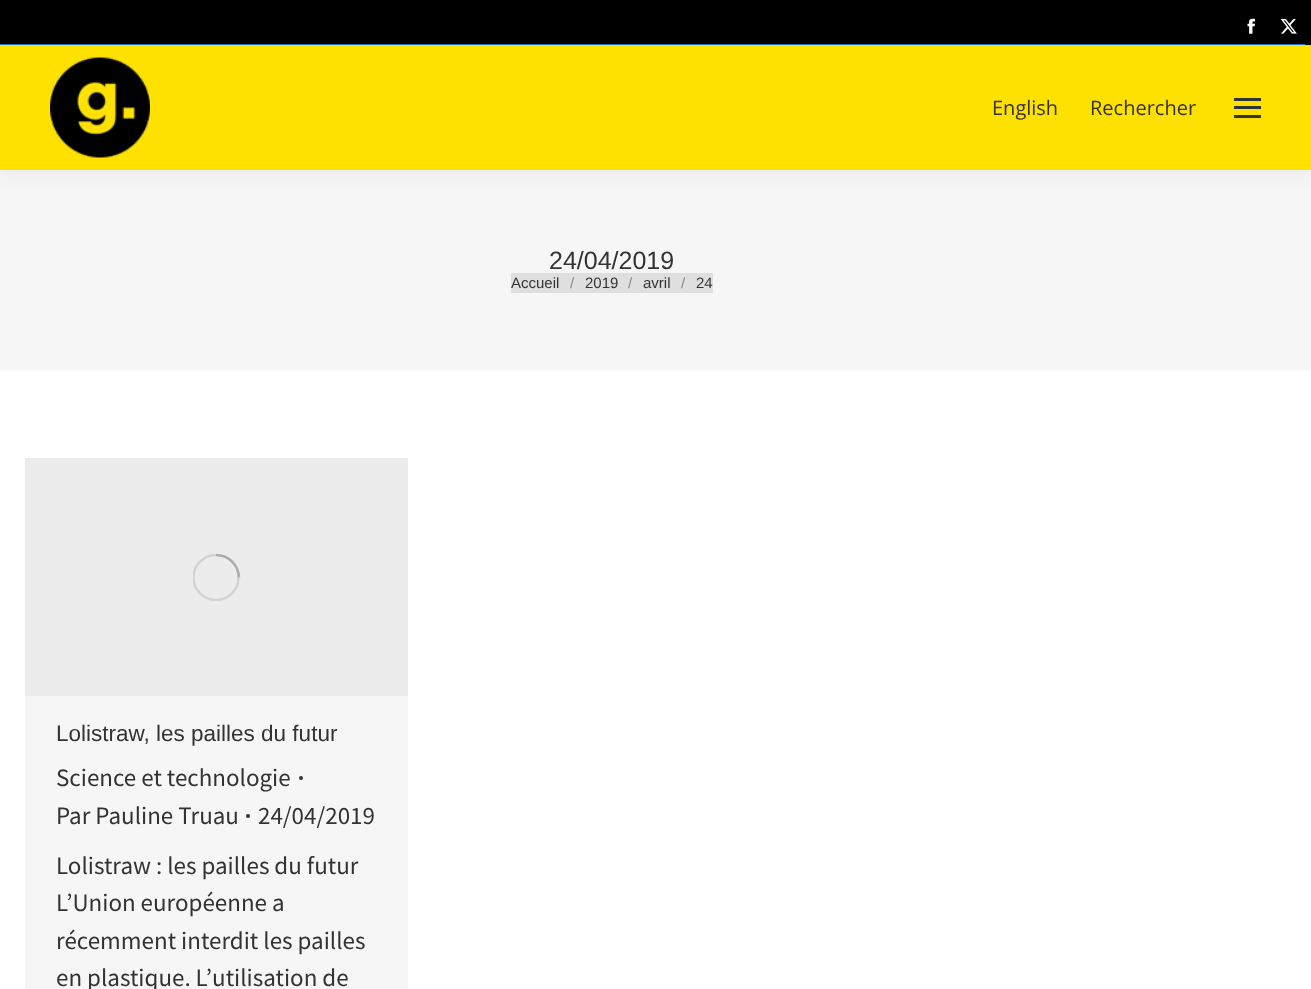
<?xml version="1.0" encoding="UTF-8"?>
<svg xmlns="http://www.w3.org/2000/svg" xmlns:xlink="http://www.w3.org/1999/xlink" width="1311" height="989">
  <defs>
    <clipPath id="clip1"><rect x="193" y="554" width="47" height="47" /></clipPath>
  </defs>
  <rect width="100%" height="100%" fill="#ffffff" />
  <rect y="170" width="1311" height="200" fill="#f6f6f6" />
  <rect x="-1" y="-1" width="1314" height="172" fill="#000000" fill-opacity="0.07" filter="blur(9.5px)" />
  <rect y="45" width="1311" height="125" fill="#ffe100" />
  <rect width="1311" height="45" fill="#000000" />
  <image x="1247" y="18" width="8" height="16" xlink:href="image1.png" />
  <image x="1280" y="18" width="17" height="16" xlink:href="image2.png" />
  <rect y="44" width="1305" height="1" fill="#1e73be" />
  <image x="50" y="57" width="100" height="101" xlink:href="image3.png" />
  <rect x="1234" y="98" width="27" height="3" fill="#333333" />
  <rect x="1234" y="106" width="27" height="3" fill="#333333" />
  <rect x="1234" y="115" width="27" height="3" fill="#333333" />
  <rect x="511" y="273" width="202" height="20" fill="#dfdfdf" />
  <rect x="25" y="696" width="383" height="293" fill="#f6f6f6" />
  <rect x="25" y="458" width="383" height="238" fill="#ececec" />
  <g clip-path="url(#clip1)">
    <circle cx="216" cy="577.5" r="22.5" fill="none" stroke="#d3d3d3" stroke-width="2.5" />
  </g>
  <path d="M 239 577.5 c 0 -12.5 -10.5 -22.5 -23 -22.5" fill="none" stroke="#333333" stroke-opacity="0.25" stroke-width="2.5" />
  <circle cx="301" cy="778" r="2" fill="#333333" />
  <circle cx="248" cy="816" r="2" fill="#333333" />
  <text x="992" y="115" style="font-family: Open Sans; font-size: 20px; fill: #333333">English</text>
  <text x="1090" y="115" style="font-family: Open Sans; font-size: 20px; fill: #333333">Rechercher</text>
  <text x="549" y="269" style="font-family: Liberation Sans; font-size: 25px; fill: #333333">24/04/2019</text>
  <text x="511" y="288" style="font-family: Liberation Sans; font-size: 15px; fill: #333333">Accueil</text>
  <text x="570" y="288" style="font-family: Liberation Sans; font-size: 15px; fill: #898989">/</text>
  <text x="585" y="288" style="font-family: Liberation Sans; font-size: 15px; fill: #333333">2019</text>
  <text x="628" y="288" style="font-family: Liberation Sans; font-size: 15px; fill: #898989">/</text>
  <text x="643" y="288" style="font-family: Liberation Sans; font-size: 15px; fill: #333333">avril</text>
  <text x="681" y="288" style="font-family: Liberation Sans; font-size: 15px; fill: #898989">/</text>
  <text x="696" y="288" style="font-family: Liberation Sans; font-size: 15px; fill: #333333">24</text>
  <text x="56" y="741" style="font-family: Liberation Sans; font-size: 22.5px; fill: #333333">Lolistraw, les pailles du futur</text>
  <text x="56" y="786" style="font-family: Source Sans Pro; font-size: 25px; fill: #333333">Science et technologie</text>
  <text x="56" y="824" style="font-family: Source Sans Pro; font-size: 25px; fill: #333333">Par Pauline Truau</text>
  <text x="258" y="824" style="font-family: Source Sans Pro; font-size: 25px; fill: #333333">24/04/2019</text>
  <text x="56" y="874" style="font-family: Source Sans Pro; font-size: 25px; fill: #333333">Lolistraw : les pailles du futur</text>
  <text x="56" y="911" style="font-family: Source Sans Pro; font-size: 25px; fill: #333333">L’Union européenne a</text>
  <text x="56" y="949" style="font-family: Source Sans Pro; font-size: 25px; fill: #333333">récemment interdit les pailles</text>
  <text x="56" y="986" style="font-family: Source Sans Pro; font-size: 25px; fill: #333333">en plastique. L’utilisation de</text>
</svg>
